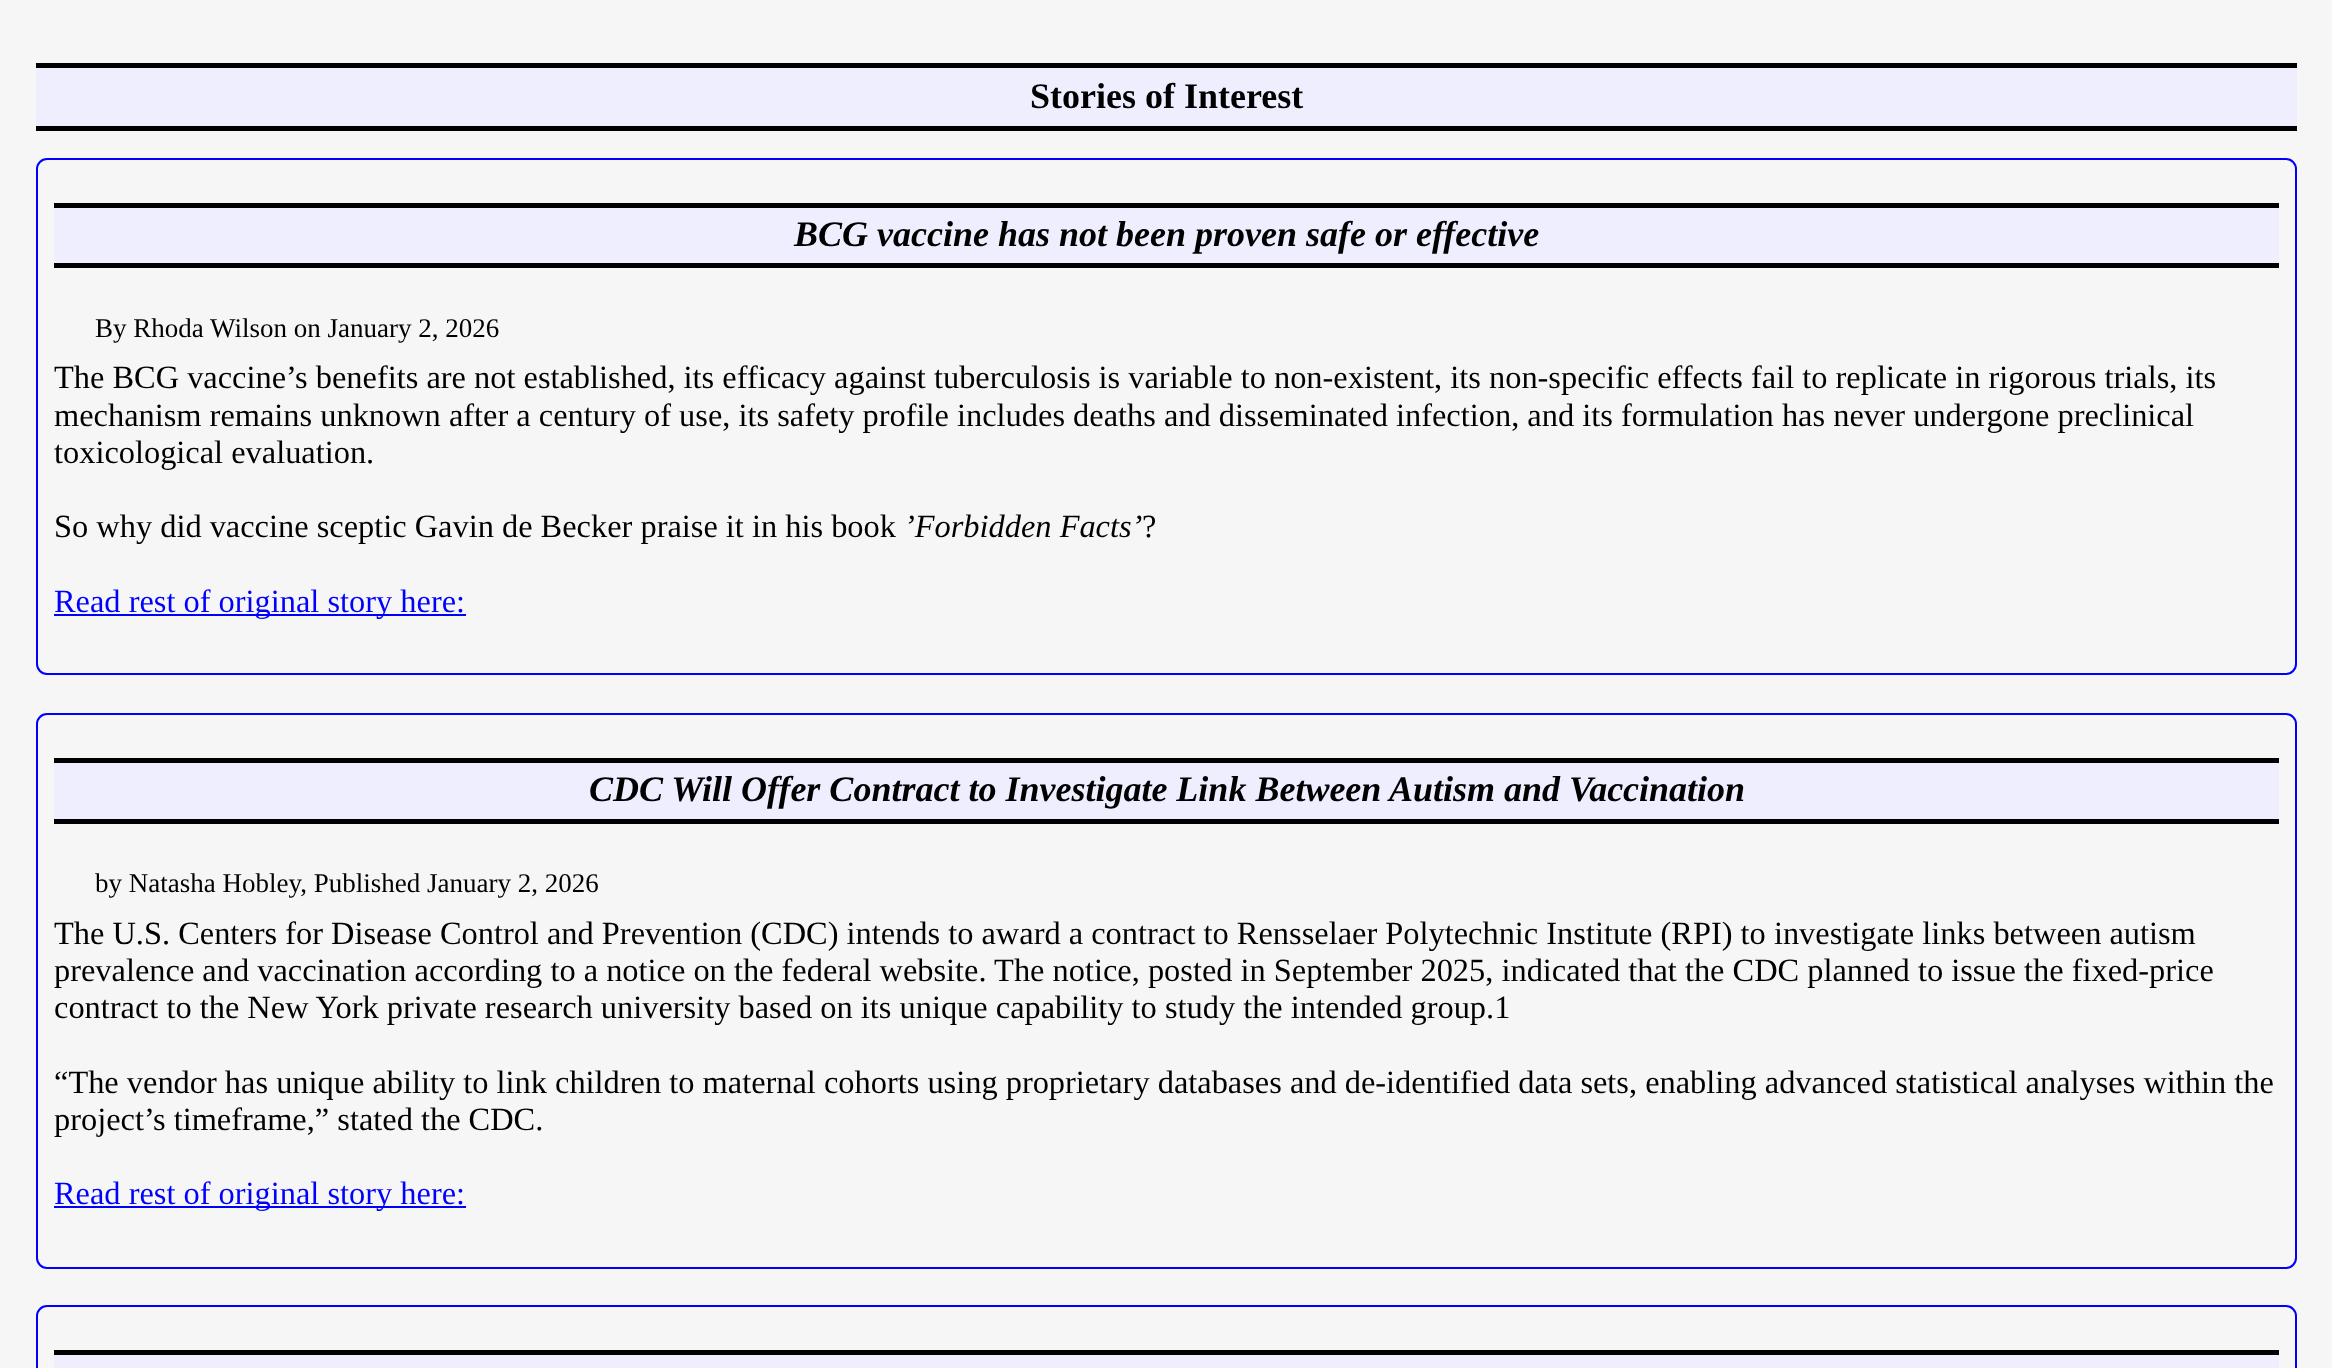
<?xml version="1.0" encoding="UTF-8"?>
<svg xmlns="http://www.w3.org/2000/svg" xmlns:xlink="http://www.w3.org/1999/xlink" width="2332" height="1368">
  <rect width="100%" height="100%" fill="#f6f6f6" />
  <rect x="36" y="68" width="2261" height="58" fill="#eeeeff" />
  <rect x="36" y="63" width="2261" height="5" fill="#000000" />
  <rect x="36" y="126" width="2261" height="5" fill="#000000" />
  <rect x="37" y="159" width="2259" height="515" rx="10" fill="none" stroke="#0000ff" stroke-width="2" />
  <rect x="54" y="208" width="2225" height="55" fill="#eeeeff" />
  <rect x="54" y="203" width="2225" height="5" fill="#000000" />
  <rect x="54" y="263" width="2225" height="5" fill="#000000" />
  <rect x="54" y="614" width="412" height="2" fill="#0000ff" />
  <rect x="37" y="714" width="2259" height="554" rx="10" fill="none" stroke="#0000ff" stroke-width="2" />
  <rect x="54" y="763" width="2225" height="56" fill="#eeeeff" />
  <rect x="54" y="758" width="2225" height="5" fill="#000000" />
  <rect x="54" y="819" width="2225" height="5" fill="#000000" />
  <rect x="54" y="1206" width="412" height="2" fill="#0000ff" />
  <rect x="37" y="1306" width="2259" height="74" rx="10" fill="none" stroke="#0000ff" stroke-width="2" />
  <rect x="54" y="1355" width="2225" height="13" fill="#eeeeff" />
  <rect x="54" y="1350" width="2225" height="5" fill="#000000" />
  <text x="1030" y="108" style="font-family: Liberation Serif; font-size: 36px; font-weight: bold; fill: #000000">Stories of Interest</text>
  <text x="794" y="246" style="font-family: Liberation Serif; font-size: 36px; font-weight: bold; font-style: italic; fill: #000000">BCG vaccine has not been proven safe or effective</text>
  <text x="95" y="337" style="font-family: Liberation Serif; font-size: 27px; fill: #000000">By Rhoda Wilson on January 2, 2026</text>
  <text x="54" y="388" style="font-family: Liberation Serif; font-size: 32.4px; fill: #000000">The BCG vaccine’s benefits are not established, its efficacy against tuberculosis is variable to non-existent, its non-specific effects fail to replicate in rigorous trials, its</text>
  <text x="54" y="426" style="font-family: Liberation Serif; font-size: 32.4px; fill: #000000">mechanism remains unknown after a century of use, its safety profile includes deaths and disseminated infection, and its formulation has never undergone preclinical</text>
  <text x="54" y="463" style="font-family: Liberation Serif; font-size: 32.4px; fill: #000000">toxicological evaluation.</text>
  <text x="54" y="537" style="font-family: Liberation Serif; font-size: 32.4px; fill: #000000">So why did vaccine sceptic Gavin de Becker praise it in his book</text>
  <text x="904" y="537" style="font-family: Liberation Serif; font-size: 32.4px; font-style: italic; fill: #000000">’Forbidden Facts’</text>
  <text x="1142" y="537" style="font-family: Liberation Serif; font-size: 32.4px; fill: #000000">?</text>
  <text x="54" y="612" style="font-family: Liberation Serif; font-size: 32.4px; fill: #0000ff">Read rest of original story here:</text>
  <text x="589" y="801" style="font-family: Liberation Serif; font-size: 36px; font-weight: bold; font-style: italic; fill: #000000">CDC Will Offer Contract to Investigate Link Between Autism and Vaccination</text>
  <text x="95" y="892" style="font-family: Liberation Serif; font-size: 27px; fill: #000000">by Natasha Hobley, Published January 2, 2026</text>
  <text x="54" y="944" style="font-family: Liberation Serif; font-size: 32.4px; fill: #000000">The U.S. Centers for Disease Control and Prevention (CDC) intends to award a contract to Rensselaer Polytechnic Institute (RPI) to investigate links between autism</text>
  <text x="54" y="981" style="font-family: Liberation Serif; font-size: 32.4px; fill: #000000">prevalence and vaccination according to a notice on the federal website. The notice, posted in September 2025, indicated that the CDC planned to issue the fixed-price</text>
  <text x="54" y="1018" style="font-family: Liberation Serif; font-size: 32.4px; fill: #000000">contract to the New York private research university based on its unique capability to study the intended group.1</text>
  <text x="54" y="1093" style="font-family: Liberation Serif; font-size: 32.4px; fill: #000000">“The vendor has unique ability to link children to maternal cohorts using proprietary databases and de-identified data sets, enabling advanced statistical analyses within the</text>
  <text x="54" y="1130" style="font-family: Liberation Serif; font-size: 32.4px; fill: #000000">project’s timeframe,” stated the CDC.</text>
  <text x="54" y="1204" style="font-family: Liberation Serif; font-size: 32.4px; fill: #0000ff">Read rest of original story here:</text>
</svg>
